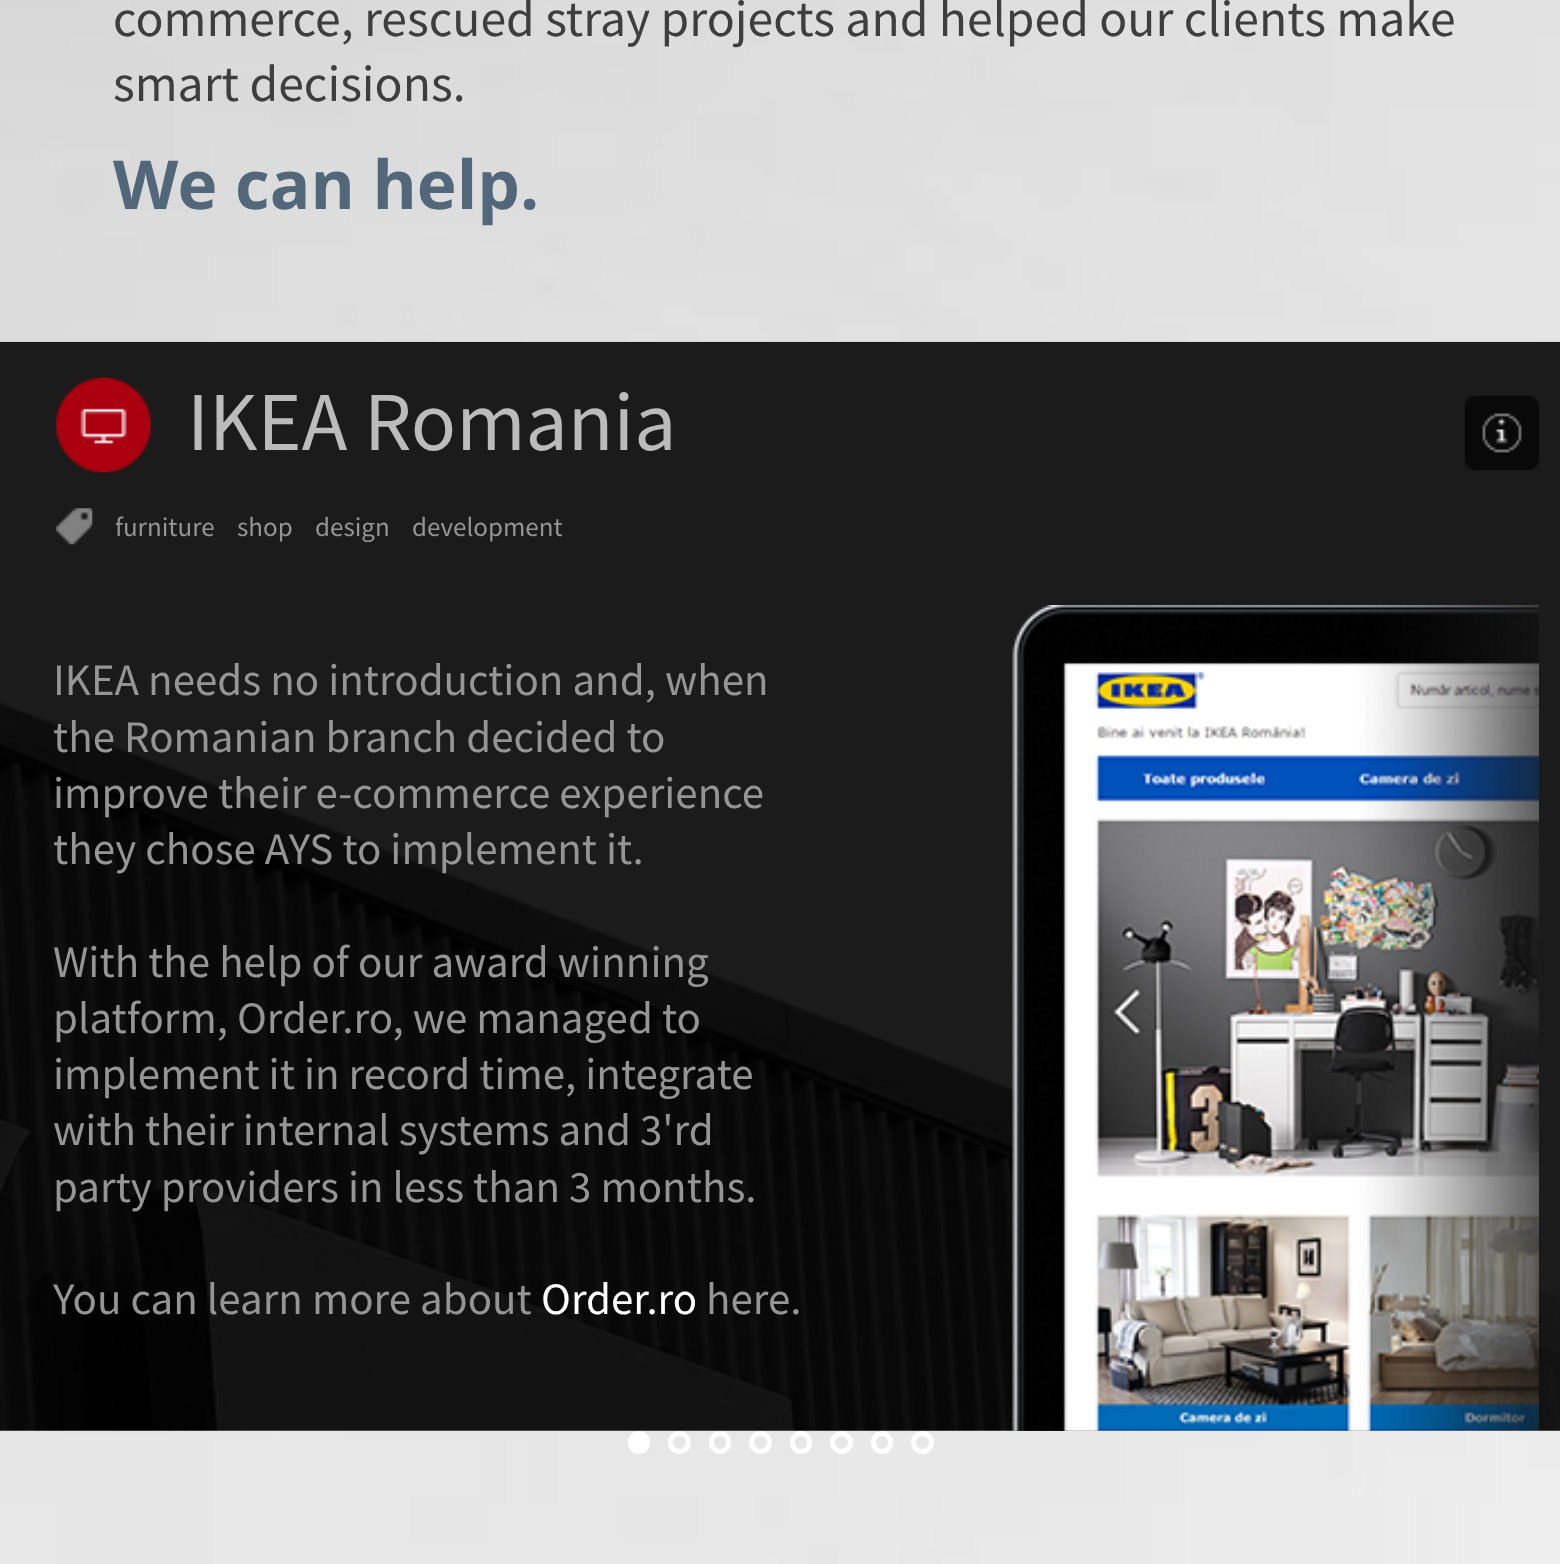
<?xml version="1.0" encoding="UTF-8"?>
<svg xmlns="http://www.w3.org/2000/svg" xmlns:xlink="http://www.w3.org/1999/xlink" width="1560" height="1564">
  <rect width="100%" height="100%" fill="#ffffff" />
  <image x="0" y="0" width="1560" height="1564" xlink:href="image1.png" />
  <image x="0" y="341" width="1560" height="1090" xlink:href="image2.png" />
  <image x="56" y="377" width="95" height="96" xlink:href="image3.png" />
  <image x="1464" y="395" width="75" height="75" xlink:href="image4.png" />
  <image x="56" y="508" width="37" height="37" xlink:href="image5.png" />
  <image x="1012" y="605" width="527" height="826" xlink:href="image6.png" />
  <rect x="630.5" y="1433.5" width="17" height="18" rx="8.5" fill="#ffffff" stroke="#ffffff" stroke-width="5" />
  <circle cx="679.5" cy="1442.5" r="9" fill="none" stroke="#ffffff" stroke-width="5" />
  <rect x="711.5" y="1433.5" width="17" height="18" rx="8.5" fill="none" stroke="#ffffff" stroke-width="5" />
  <circle cx="760.5" cy="1442.5" r="9" fill="none" stroke="#ffffff" stroke-width="5" />
  <rect x="792.5" y="1433.5" width="17" height="18" rx="8.5" fill="none" stroke="#ffffff" stroke-width="5" />
  <circle cx="841.5" cy="1442.5" r="9" fill="none" stroke="#ffffff" stroke-width="5" />
  <rect x="873.5" y="1433.5" width="17" height="18" rx="8.5" fill="none" stroke="#ffffff" stroke-width="5" />
  <circle cx="922.5" cy="1442.5" r="9" fill="none" stroke="#ffffff" stroke-width="5" />
  <text x="113" y="36" style="font-family: Source Sans Pro; font-size: 51.75px; fill: #3e3e3e">commerce, rescued stray projects and helped our clients make</text>
  <text x="113" y="101" style="font-family: Source Sans Pro; font-size: 51.75px; fill: #3e3e3e">smart decisions.</text>
  <text x="113" y="209" style="font-family: Noto Sans; font-size: 67.5px; font-weight: bold; fill: #52687a">We can help.</text>
  <text x="187" y="450" style="font-family: Source Sans Pro; font-size: 83.75px; fill: #bbbbbc">IKEA Romania</text>
  <text x="115" y="536" style="font-family: Source Sans Pro; font-size: 27px; fill: #959595">furniture</text>
  <text x="237" y="536" style="font-family: Source Sans Pro; font-size: 27px; fill: #959595">shop</text>
  <text x="315" y="536" style="font-family: Source Sans Pro; font-size: 27px; fill: #959595">design</text>
  <text x="412" y="536" style="font-family: Source Sans Pro; font-size: 27px; fill: #959595">development</text>
  <text x="53" y="695" style="font-family: Source Sans Pro; font-size: 45px; fill: #959595">IKEA needs no introduction and, when</text>
  <text x="53" y="752" style="font-family: Source Sans Pro; font-size: 45px; fill: #959595">the Romanian branch decided to</text>
  <text x="53" y="808" style="font-family: Source Sans Pro; font-size: 45px; fill: #959595">improve their e-commerce experience</text>
  <text x="53" y="864" style="font-family: Source Sans Pro; font-size: 45px; fill: #959595">they chose AYS to implement it.</text>
  <text x="53" y="977" style="font-family: Source Sans Pro; font-size: 45px; fill: #959595">With the help of our award winning</text>
  <text x="53" y="1033" style="font-family: Source Sans Pro; font-size: 45px; fill: #959595">platform, Order.ro, we managed to</text>
  <text x="53" y="1089" style="font-family: Source Sans Pro; font-size: 45px; fill: #959595">implement it in record time, integrate</text>
  <text x="53" y="1145" style="font-family: Source Sans Pro; font-size: 45px; fill: #959595">with their internal systems and 3'rd</text>
  <text x="53" y="1202" style="font-family: Source Sans Pro; font-size: 45px; fill: #959595">party providers in less than 3 months.</text>
  <text x="53" y="1314" style="font-family: Source Sans Pro; font-size: 45px; fill: #959595">You can learn more about</text>
  <text x="541" y="1314" style="font-family: Source Sans Pro; font-size: 45px; fill: #ffffff">Order.ro</text>
  <text x="706" y="1314" style="font-family: Source Sans Pro; font-size: 45px; fill: #959595">here.</text>
</svg>
